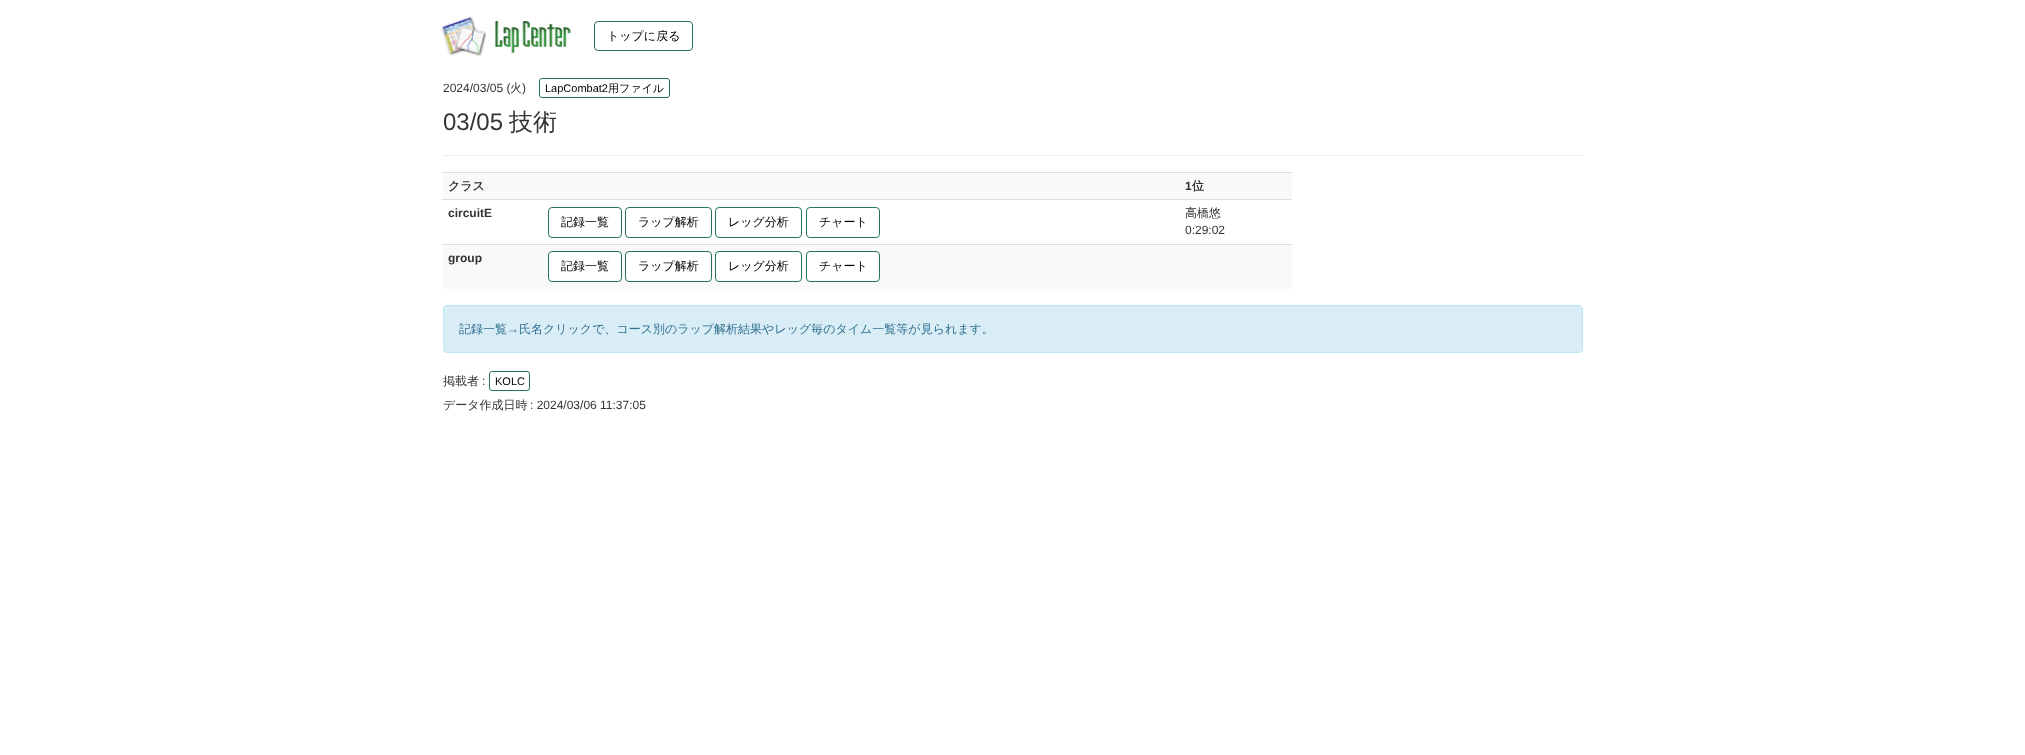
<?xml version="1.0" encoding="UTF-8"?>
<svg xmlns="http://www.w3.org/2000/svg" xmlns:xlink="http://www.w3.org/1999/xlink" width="2025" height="755">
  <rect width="100%" height="100%" fill="#ffffff" />
  <image x="441" y="16" width="130" height="40" xlink:href="image1.png" />
  <rect x="594.5" y="21.5" width="98" height="29" rx="3.5" fill="none" stroke="#267556" />
  <rect x="539.5" y="78.5" width="130" height="19" rx="2.5" fill="none" stroke="#267556" />
  <rect x="443" y="155" width="1140" height="1" fill="#eeeeee" />
  <rect x="443" y="173" width="849" height="26" fill="#f9f9f9" />
  <rect x="442" y="172" width="850" height="1" fill="#dddddd" />
  <rect x="442" y="199" width="850" height="1" fill="#dddddd" />
  <rect x="548.5" y="207.5" width="73" height="30" rx="3.5" fill="none" stroke="#267556" />
  <rect x="625.5" y="207.5" width="86" height="30" rx="3.5" fill="none" stroke="#267556" />
  <rect x="715.5" y="207.5" width="86" height="30" rx="3.5" fill="none" stroke="#267556" />
  <rect x="806.5" y="207.5" width="73" height="30" rx="3.5" fill="none" stroke="#267556" />
  <rect x="443" y="245" width="849" height="44" fill="#f9f9f9" />
  <rect x="442" y="244" width="850" height="1" fill="#dddddd" />
  <rect x="548.5" y="251.5" width="73" height="30" rx="3.5" fill="#ffffff" stroke="#267556" />
  <rect x="625.5" y="251.5" width="86" height="30" rx="3.5" fill="#ffffff" stroke="#267556" />
  <rect x="715.5" y="251.5" width="86" height="30" rx="3.5" fill="#ffffff" stroke="#267556" />
  <rect x="806.5" y="251.5" width="73" height="30" rx="3.5" fill="#ffffff" stroke="#267556" />
  <rect x="443.5" y="305.5" width="1139" height="47" rx="3.5" fill="#d9edf7" stroke="#bce8f1" />
  <rect x="489.5" y="371.5" width="40" height="19" rx="2.5" fill="none" stroke="#267556" />
  <text x="607" y="40" style="font-family: WenQuanYi Zen Hei; font-size: 12px; font-weight: 500; fill: #000000">トップに戻る</text>
  <text x="443" y="92" style="font-family: Liberation Sans; font-size: 12px; fill: #333333">2024/03/05 (</text>
  <text x="510" y="92" style="font-family: WenQuanYi Zen Hei; font-size: 12px; font-weight: 500; fill: #333333">火</text>
  <text x="522" y="92" style="font-family: Liberation Sans; font-size: 12px; fill: #333333">)</text>
  <text x="545" y="92" style="font-family: Liberation Sans; font-size: 11px; fill: #000000">LapCombat2</text>
  <text x="608" y="92" style="font-family: WenQuanYi Zen Hei; font-size: 11px; font-weight: 500; fill: #000000">用ファイル</text>
  <text x="443" y="130" style="font-family: Liberation Sans; font-size: 24px; fill: #333333">03/05</text>
  <text x="509" y="130" style="font-family: WenQuanYi Zen Hei; font-size: 24px; font-weight: 500; fill: #333333">技術</text>
  <text x="448" y="190" style="font-family: WenQuanYi Zen Hei; font-size: 12px; font-weight: bold; fill: #333333">クラス</text>
  <text x="1185" y="190" style="font-family: Liberation Sans; font-size: 12px; font-weight: bold; fill: #333333">1</text>
  <text x="1192" y="190" style="font-family: WenQuanYi Zen Hei; font-size: 12px; font-weight: bold; fill: #333333">位</text>
  <text x="448" y="217" style="font-family: Liberation Sans; font-size: 12px; font-weight: bold; fill: #333333">circuitE</text>
  <text x="1185" y="217" style="font-family: WenQuanYi Zen Hei; font-size: 12px; font-weight: 500; fill: #333333">高橋悠</text>
  <text x="1185" y="234" style="font-family: Liberation Sans; font-size: 12px; fill: #333333">0:29:02</text>
  <text x="561" y="226" style="font-family: WenQuanYi Zen Hei; font-size: 12px; font-weight: 500; fill: #000000">記録一覧</text>
  <text x="638" y="226" style="font-family: WenQuanYi Zen Hei; font-size: 12px; font-weight: 500; fill: #000000">ラップ解析</text>
  <text x="728" y="226" style="font-family: WenQuanYi Zen Hei; font-size: 12px; font-weight: 500; fill: #000000">レッグ分析</text>
  <text x="819" y="226" style="font-family: WenQuanYi Zen Hei; font-size: 12px; font-weight: 500; fill: #000000">チャート</text>
  <text x="448" y="262" style="font-family: Liberation Sans; font-size: 12px; font-weight: bold; fill: #333333">group</text>
  <text x="561" y="270" style="font-family: WenQuanYi Zen Hei; font-size: 12px; font-weight: 500; fill: #000000">記録一覧</text>
  <text x="638" y="270" style="font-family: WenQuanYi Zen Hei; font-size: 12px; font-weight: 500; fill: #000000">ラップ解析</text>
  <text x="728" y="270" style="font-family: WenQuanYi Zen Hei; font-size: 12px; font-weight: 500; fill: #000000">レッグ分析</text>
  <text x="819" y="270" style="font-family: WenQuanYi Zen Hei; font-size: 12px; font-weight: 500; fill: #000000">チャート</text>
  <text x="459" y="333" style="font-family: WenQuanYi Zen Hei; font-size: 12px; font-weight: 500; fill: #31708f">記録一覧</text>
  <text x="507" y="333" style="font-family: Liberation Sans; font-size: 12px; fill: #31708f">→</text>
  <text x="519" y="333" style="font-family: WenQuanYi Zen Hei; font-size: 12px; font-weight: 500; fill: #31708f">氏名クリックで、コース別のラップ解析結果やレッグ毎のタイム一覧等が見られます。</text>
  <text x="443" y="385" style="font-family: WenQuanYi Zen Hei; font-size: 12px; font-weight: 500; fill: #333333">掲載者</text>
  <text x="482" y="385" style="font-family: Liberation Sans; font-size: 12px; fill: #333333">:</text>
  <text x="495" y="385" style="font-family: Liberation Sans; font-size: 11px; fill: #000000">KOLC</text>
  <text x="443" y="409" style="font-family: WenQuanYi Zen Hei; font-size: 12px; font-weight: 500; fill: #333333">データ作成日時</text>
  <text x="530" y="409" style="font-family: Liberation Sans; font-size: 12px; fill: #333333">: 2024/03/06 11:37:05</text>
</svg>
